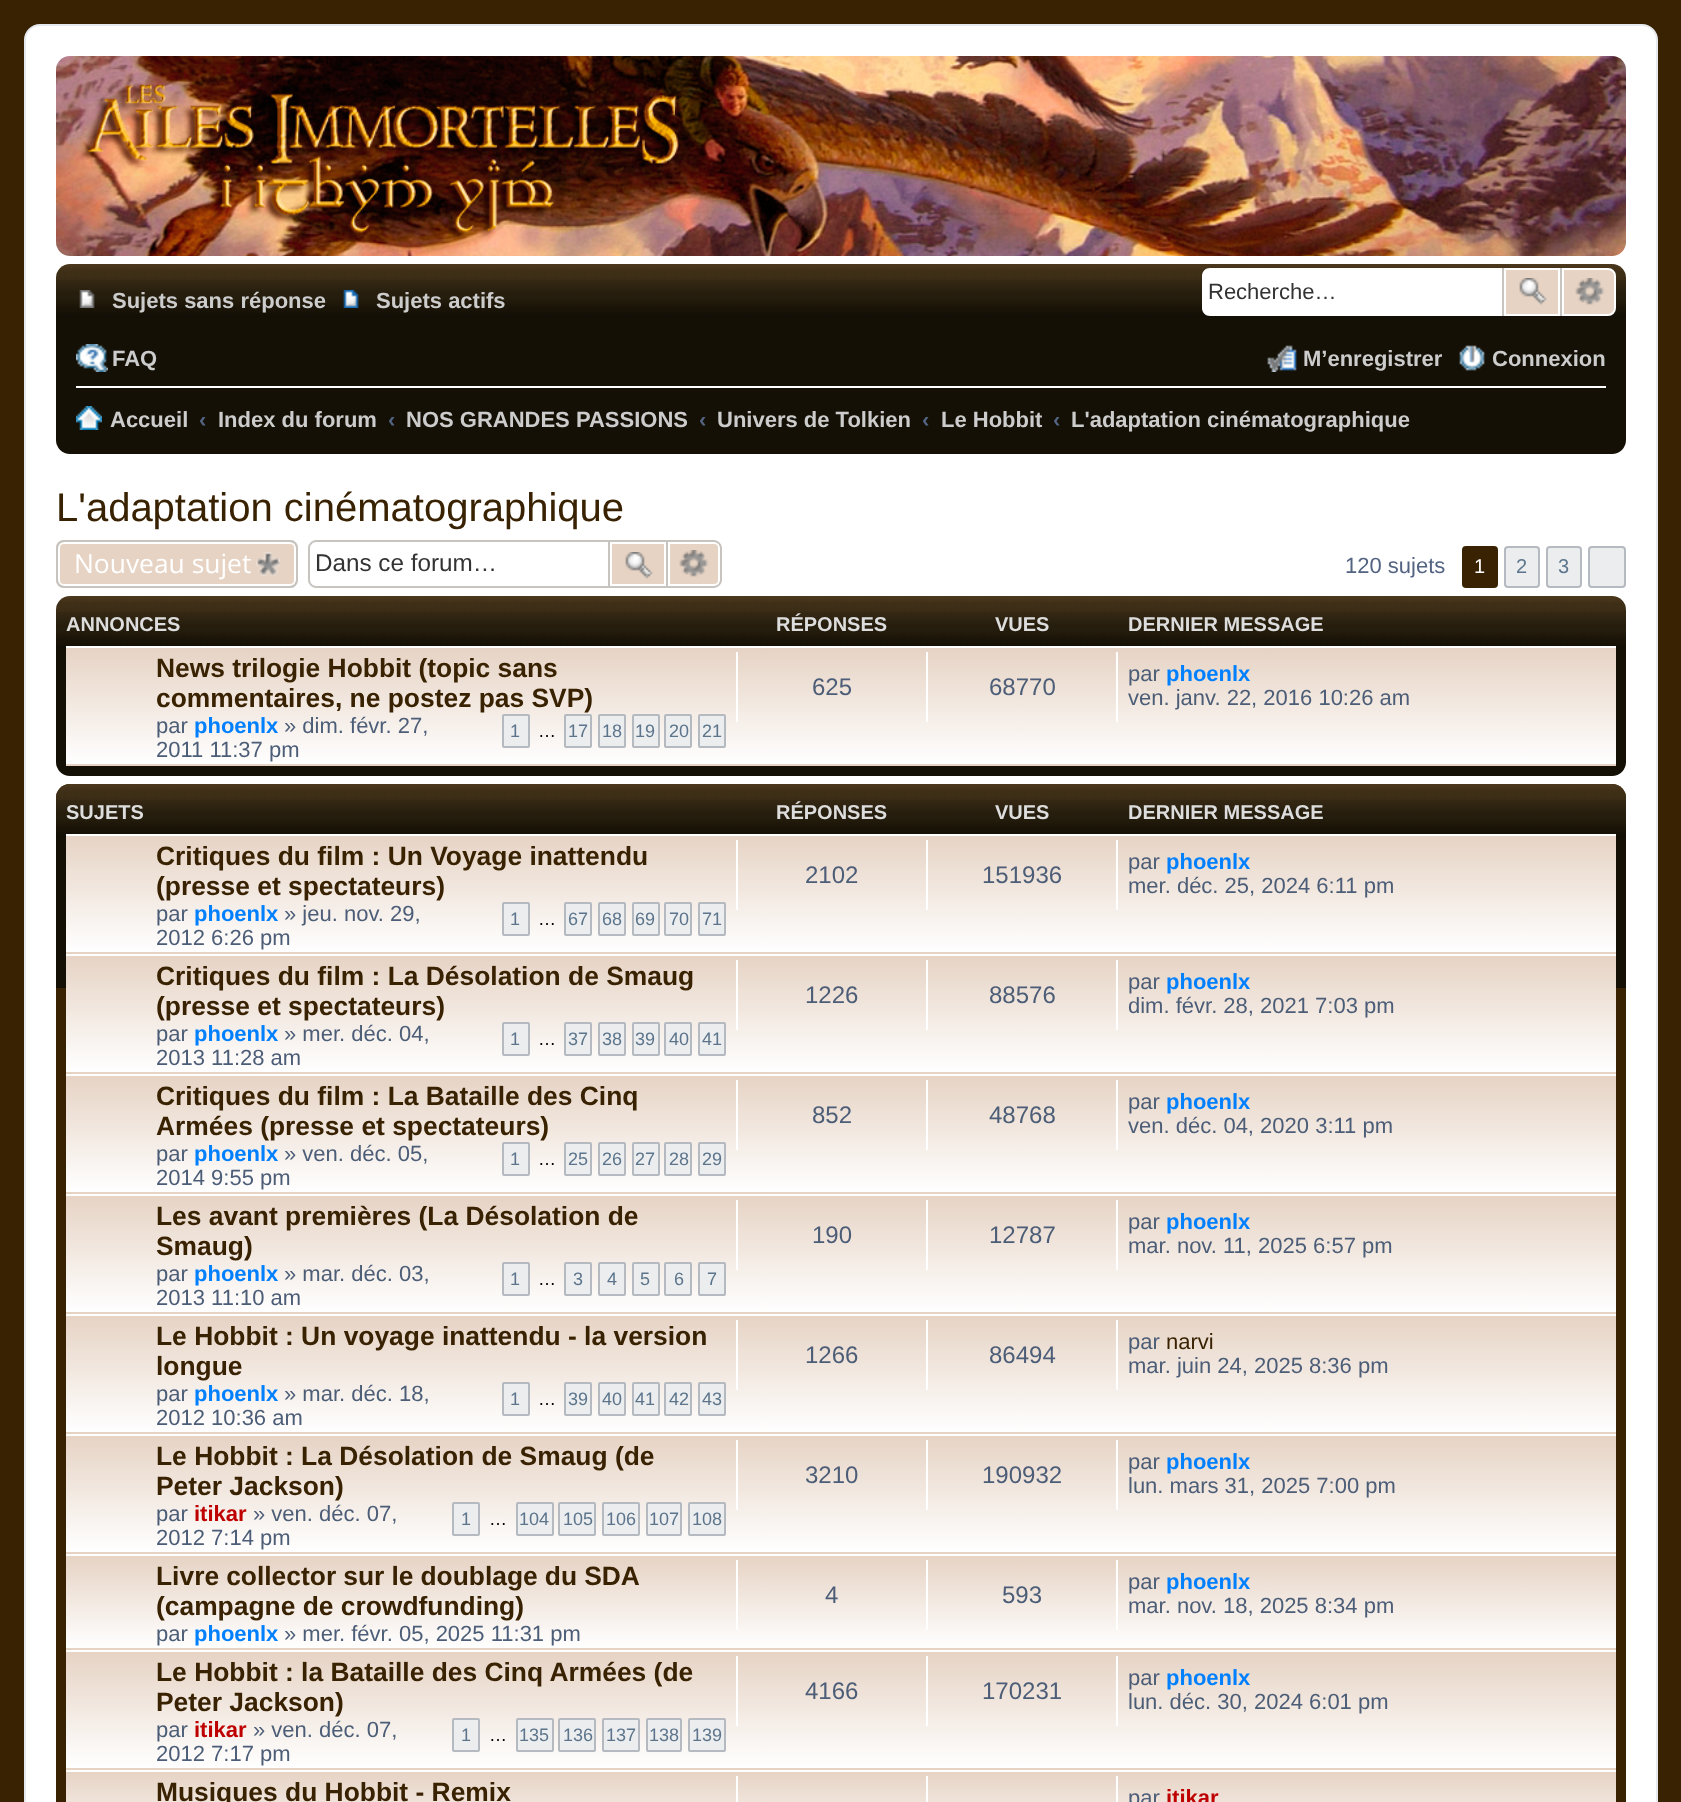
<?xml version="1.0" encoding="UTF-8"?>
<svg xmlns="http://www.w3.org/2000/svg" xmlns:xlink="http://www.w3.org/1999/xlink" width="1681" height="1802">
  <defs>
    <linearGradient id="g1" gradientUnits="userSpaceOnUse" x1="841" y1="532" x2="841" y2="648"><stop offset="0" stop-color="#e6d3c4" /><stop offset="1" stop-color="#ffffff" /></linearGradient>
    <linearGradient id="g2" gradientUnits="userSpaceOnUse" x1="841" y1="648" x2="841" y2="764"><stop offset="0" stop-color="#e6d3c4" /><stop offset="1" stop-color="#ffffff" /></linearGradient>
    <linearGradient id="g3" gradientUnits="userSpaceOnUse" x1="841" y1="720" x2="841" y2="836"><stop offset="0" stop-color="#e6d3c4" /><stop offset="1" stop-color="#ffffff" /></linearGradient>
    <linearGradient id="g4" gradientUnits="userSpaceOnUse" x1="841" y1="836" x2="841" y2="952"><stop offset="0" stop-color="#e6d3c4" /><stop offset="1" stop-color="#ffffff" /></linearGradient>
    <linearGradient id="g5" gradientUnits="userSpaceOnUse" x1="841" y1="840" x2="841" y2="956"><stop offset="0" stop-color="#e6d3c4" /><stop offset="1" stop-color="#ffffff" /></linearGradient>
    <linearGradient id="g6" gradientUnits="userSpaceOnUse" x1="841" y1="956" x2="841" y2="1072"><stop offset="0" stop-color="#e6d3c4" /><stop offset="1" stop-color="#ffffff" /></linearGradient>
    <linearGradient id="g7" gradientUnits="userSpaceOnUse" x1="841" y1="960" x2="841" y2="1076"><stop offset="0" stop-color="#e6d3c4" /><stop offset="1" stop-color="#ffffff" /></linearGradient>
    <linearGradient id="g8" gradientUnits="userSpaceOnUse" x1="841" y1="1076" x2="841" y2="1192"><stop offset="0" stop-color="#e6d3c4" /><stop offset="1" stop-color="#ffffff" /></linearGradient>
    <linearGradient id="g9" gradientUnits="userSpaceOnUse" x1="841" y1="1080" x2="841" y2="1196"><stop offset="0" stop-color="#e6d3c4" /><stop offset="1" stop-color="#ffffff" /></linearGradient>
    <linearGradient id="g10" gradientUnits="userSpaceOnUse" x1="841" y1="1196" x2="841" y2="1312"><stop offset="0" stop-color="#e6d3c4" /><stop offset="1" stop-color="#ffffff" /></linearGradient>
    <linearGradient id="g11" gradientUnits="userSpaceOnUse" x1="841" y1="1200" x2="841" y2="1316"><stop offset="0" stop-color="#e6d3c4" /><stop offset="1" stop-color="#ffffff" /></linearGradient>
    <linearGradient id="g12" gradientUnits="userSpaceOnUse" x1="841" y1="1316" x2="841" y2="1432"><stop offset="0" stop-color="#e6d3c4" /><stop offset="1" stop-color="#ffffff" /></linearGradient>
    <linearGradient id="g13" gradientUnits="userSpaceOnUse" x1="841" y1="1320" x2="841" y2="1436"><stop offset="0" stop-color="#e6d3c4" /><stop offset="1" stop-color="#ffffff" /></linearGradient>
    <linearGradient id="g14" gradientUnits="userSpaceOnUse" x1="841" y1="1436" x2="841" y2="1552"><stop offset="0" stop-color="#e6d3c4" /><stop offset="1" stop-color="#ffffff" /></linearGradient>
    <linearGradient id="g15" gradientUnits="userSpaceOnUse" x1="841" y1="1464" x2="841" y2="1556"><stop offset="0" stop-color="#e6d3c4" /><stop offset="1" stop-color="#ffffff" /></linearGradient>
    <linearGradient id="g16" gradientUnits="userSpaceOnUse" x1="841" y1="1556" x2="841" y2="1648"><stop offset="0" stop-color="#e6d3c4" /><stop offset="1" stop-color="#ffffff" /></linearGradient>
    <linearGradient id="g17" gradientUnits="userSpaceOnUse" x1="841" y1="1536" x2="841" y2="1652"><stop offset="0" stop-color="#e6d3c4" /><stop offset="1" stop-color="#ffffff" /></linearGradient>
    <linearGradient id="g18" gradientUnits="userSpaceOnUse" x1="841" y1="1652" x2="841" y2="1768"><stop offset="0" stop-color="#e6d3c4" /><stop offset="1" stop-color="#ffffff" /></linearGradient>
    <linearGradient id="g19" gradientUnits="userSpaceOnUse" x1="841" y1="1694" x2="841" y2="1772"><stop offset="0" stop-color="#e6d3c4" /><stop offset="1" stop-color="#ffffff" /></linearGradient>
    <linearGradient id="g20" gradientUnits="userSpaceOnUse" x1="841" y1="1772" x2="841" y2="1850"><stop offset="0" stop-color="#e6d3c4" /><stop offset="1" stop-color="#ffffff" /></linearGradient>
  </defs>
  <rect width="100%" height="100%" fill="#392202" />
  <rect x="25" y="25" width="1632" height="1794" rx="15" fill="#ffffff" stroke="#e6e9ed" stroke-width="2" />
  <image x="56" y="56" width="1570" height="200" xlink:href="image1.png" />
  <image x="56" y="264" width="1570" height="190" xlink:href="image4.png" />
  <path d="M 1210 268 h 292 v 48 h -292 c -4.5 0 -8 -3.5 -8 -8 v -32 c 0 -4.5 3.5 -8 8 -8 z" fill="#ffffff" />
  <rect x="1505" y="269" width="54" height="46" fill="#e6d3c4" stroke="#ffffff" stroke-width="2" />
  <rect x="1560" y="268" width="2" height="48" fill="#c7c3bf" />
  <rect x="1502" y="268" width="2" height="48" fill="#c7c3bf" />
  <image x="1519" y="278" width="28" height="27" xlink:href="image2.png" />
  <path d="M 1563 269 h 45 c 4 0 7 3 7 7 v 32 c 0 4 -3 7 -7 7 h -45 z" fill="#e6d3c4" stroke="#ffffff" stroke-width="2" />
  <image x="1575" y="278" width="30" height="27" xlink:href="image3.png" />
  <image x="79" y="290" width="16" height="18" xlink:href="image5.png" />
  <image x="343" y="290" width="16" height="18" xlink:href="image6.png" />
  <image x="76" y="344" width="32" height="28" xlink:href="image7.png" />
  <image x="1267" y="345" width="30" height="27" xlink:href="image8.png" />
  <image x="1459" y="345" width="26" height="26" xlink:href="image9.png" />
  <rect x="76" y="386" width="1530" height="2" fill="#ffffff" />
  <image x="76" y="406" width="26" height="24" xlink:href="image10.png" />
  <rect x="56" y="540" width="242" height="48" rx="8" fill="#e6d3c4" />
  <rect x="59" y="543" width="236" height="42" rx="5" fill="none" stroke="#ffffff" stroke-width="2" />
  <rect x="57" y="541" width="240" height="46" rx="7" fill="none" stroke="#c7c3bf" stroke-width="2" />
  <image x="256" y="552" width="24" height="24" xlink:href="image11.png" />
  <path d="M 316 540 h 292 v 48 h -292 c -4 0 -8 -4 -8 -8 v -32 c 0 -4 4 -8 8 -8 z m 0 2 h 292 v 44 h -292 c -3 0 -6 -3 -6 -6 v -32 c 0 -3 3 -6 6 -6 z" fill="#c7c3bf" fill-rule="evenodd" />
  <rect x="612" y="544" width="52" height="40" fill="#e6d3c4" />
  <rect x="609" y="541" width="58" height="46" fill="none" stroke="#c7c3bf" stroke-width="2" />
  <image x="625" y="552" width="28" height="27" xlink:href="image2.png" />
  <path d="M 669 543 h 45 c 3 0 5 2 5 5 v 32 c 0 3 -2 5 -5 5 h -45 z" fill="#e6d3c4" stroke="#ffffff" stroke-width="2" />
  <path d="M 668 540 h 46 c 4 0 8 4 8 8 v 32 c 0 4 -4 8 -8 8 h -46 z m 0 2 h 46 c 3 0 6 3 6 6 v 32 c 0 3 -3 6 -6 6 h -46 z" fill="#c7c3bf" fill-rule="evenodd" />
  <image x="679" y="550" width="30" height="27" xlink:href="image3.png" />
  <rect x="1463" y="547" width="34" height="40" rx="3" fill="#392202" stroke="#392202" stroke-width="2" />
  <rect x="1505" y="547" width="34" height="40" rx="3" fill="#ecedee" stroke="#b4bac0" stroke-width="2" />
  <rect x="1547" y="547" width="34" height="40" rx="3" fill="#ecedee" stroke="#b4bac0" stroke-width="2" />
  <rect x="1589" y="547" width="36" height="40" rx="3" fill="#ecedee" stroke="#b4bac0" stroke-width="2" />
  <image x="56" y="596" width="1570" height="180" xlink:href="image12.png" />
  <rect x="66" y="764" width="1550" height="2" fill="#e6d3c4" />
  <rect x="66" y="646" width="1550" height="2" fill="url(#g1)" />
  <rect x="66" y="648" width="1550" height="116" fill="url(#g2)" />
  <rect x="503" y="715" width="26" height="32" rx="1" fill="#ecedee" stroke="#b4bac0" stroke-width="2" />
  <rect x="565" y="715" width="26" height="32" rx="1" fill="#ecedee" stroke="#b4bac0" stroke-width="2" />
  <rect x="599" y="715" width="26" height="32" rx="1" fill="#ecedee" stroke="#b4bac0" stroke-width="2" />
  <rect x="633" y="715" width="26" height="32" rx="1" fill="#ecedee" stroke="#b4bac0" stroke-width="2" />
  <rect x="665" y="715" width="26" height="32" rx="1" fill="#ecedee" stroke="#b4bac0" stroke-width="2" />
  <rect x="699" y="715" width="26" height="32" rx="1" fill="#ecedee" stroke="#b4bac0" stroke-width="2" />
  <rect x="736" y="652" width="2" height="70" fill="#ffffff" />
  <rect x="926" y="652" width="2" height="70" fill="#ffffff" />
  <rect x="1116" y="652" width="2" height="70" fill="#ffffff" />
  <rect x="56" y="784" width="1570" height="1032" rx="14" fill="#392202" />
  <image x="56" y="784" width="1570" height="204" xlink:href="image13.png" />
  <rect x="66" y="952" width="1550" height="2" fill="#e6d3c4" />
  <rect x="66" y="834" width="1550" height="2" fill="url(#g3)" />
  <rect x="66" y="836" width="1550" height="116" fill="url(#g4)" />
  <rect x="503" y="903" width="26" height="32" rx="1" fill="#ecedee" stroke="#b4bac0" stroke-width="2" />
  <rect x="565" y="903" width="26" height="32" rx="1" fill="#ecedee" stroke="#b4bac0" stroke-width="2" />
  <rect x="599" y="903" width="26" height="32" rx="1" fill="#ecedee" stroke="#b4bac0" stroke-width="2" />
  <rect x="633" y="903" width="26" height="32" rx="1" fill="#ecedee" stroke="#b4bac0" stroke-width="2" />
  <rect x="665" y="903" width="26" height="32" rx="1" fill="#ecedee" stroke="#b4bac0" stroke-width="2" />
  <rect x="699" y="903" width="26" height="32" rx="1" fill="#ecedee" stroke="#b4bac0" stroke-width="2" />
  <rect x="736" y="840" width="2" height="70" fill="#ffffff" />
  <rect x="926" y="840" width="2" height="70" fill="#ffffff" />
  <rect x="1116" y="840" width="2" height="70" fill="#ffffff" />
  <rect x="66" y="1072" width="1550" height="2" fill="#e6d3c4" />
  <rect x="66" y="954" width="1550" height="2" fill="url(#g5)" />
  <rect x="66" y="956" width="1550" height="116" fill="url(#g6)" />
  <rect x="503" y="1023" width="26" height="32" rx="1" fill="#ecedee" stroke="#b4bac0" stroke-width="2" />
  <rect x="565" y="1023" width="26" height="32" rx="1" fill="#ecedee" stroke="#b4bac0" stroke-width="2" />
  <rect x="599" y="1023" width="26" height="32" rx="1" fill="#ecedee" stroke="#b4bac0" stroke-width="2" />
  <rect x="633" y="1023" width="26" height="32" rx="1" fill="#ecedee" stroke="#b4bac0" stroke-width="2" />
  <rect x="665" y="1023" width="26" height="32" rx="1" fill="#ecedee" stroke="#b4bac0" stroke-width="2" />
  <rect x="699" y="1023" width="26" height="32" rx="1" fill="#ecedee" stroke="#b4bac0" stroke-width="2" />
  <rect x="736" y="960" width="2" height="70" fill="#ffffff" />
  <rect x="926" y="960" width="2" height="70" fill="#ffffff" />
  <rect x="1116" y="960" width="2" height="70" fill="#ffffff" />
  <rect x="66" y="1192" width="1550" height="2" fill="#e6d3c4" />
  <rect x="66" y="1074" width="1550" height="2" fill="url(#g7)" />
  <rect x="66" y="1076" width="1550" height="116" fill="url(#g8)" />
  <rect x="503" y="1143" width="26" height="32" rx="1" fill="#ecedee" stroke="#b4bac0" stroke-width="2" />
  <rect x="565" y="1143" width="26" height="32" rx="1" fill="#ecedee" stroke="#b4bac0" stroke-width="2" />
  <rect x="599" y="1143" width="26" height="32" rx="1" fill="#ecedee" stroke="#b4bac0" stroke-width="2" />
  <rect x="633" y="1143" width="26" height="32" rx="1" fill="#ecedee" stroke="#b4bac0" stroke-width="2" />
  <rect x="665" y="1143" width="26" height="32" rx="1" fill="#ecedee" stroke="#b4bac0" stroke-width="2" />
  <rect x="699" y="1143" width="26" height="32" rx="1" fill="#ecedee" stroke="#b4bac0" stroke-width="2" />
  <rect x="736" y="1080" width="2" height="70" fill="#ffffff" />
  <rect x="926" y="1080" width="2" height="70" fill="#ffffff" />
  <rect x="1116" y="1080" width="2" height="70" fill="#ffffff" />
  <rect x="66" y="1312" width="1550" height="2" fill="#e6d3c4" />
  <rect x="66" y="1194" width="1550" height="2" fill="url(#g9)" />
  <rect x="66" y="1196" width="1550" height="116" fill="url(#g10)" />
  <rect x="503" y="1263" width="26" height="32" rx="1" fill="#ecedee" stroke="#b4bac0" stroke-width="2" />
  <rect x="565" y="1263" width="26" height="32" rx="1" fill="#ecedee" stroke="#b4bac0" stroke-width="2" />
  <rect x="599" y="1263" width="26" height="32" rx="1" fill="#ecedee" stroke="#b4bac0" stroke-width="2" />
  <rect x="633" y="1263" width="26" height="32" rx="1" fill="#ecedee" stroke="#b4bac0" stroke-width="2" />
  <rect x="665" y="1263" width="26" height="32" rx="1" fill="#ecedee" stroke="#b4bac0" stroke-width="2" />
  <rect x="699" y="1263" width="26" height="32" rx="1" fill="#ecedee" stroke="#b4bac0" stroke-width="2" />
  <rect x="736" y="1200" width="2" height="70" fill="#ffffff" />
  <rect x="926" y="1200" width="2" height="70" fill="#ffffff" />
  <rect x="1116" y="1200" width="2" height="70" fill="#ffffff" />
  <rect x="66" y="1432" width="1550" height="2" fill="#e6d3c4" />
  <rect x="66" y="1314" width="1550" height="2" fill="url(#g11)" />
  <rect x="66" y="1316" width="1550" height="116" fill="url(#g12)" />
  <rect x="503" y="1383" width="26" height="32" rx="1" fill="#ecedee" stroke="#b4bac0" stroke-width="2" />
  <rect x="565" y="1383" width="26" height="32" rx="1" fill="#ecedee" stroke="#b4bac0" stroke-width="2" />
  <rect x="599" y="1383" width="26" height="32" rx="1" fill="#ecedee" stroke="#b4bac0" stroke-width="2" />
  <rect x="633" y="1383" width="26" height="32" rx="1" fill="#ecedee" stroke="#b4bac0" stroke-width="2" />
  <rect x="665" y="1383" width="26" height="32" rx="1" fill="#ecedee" stroke="#b4bac0" stroke-width="2" />
  <rect x="699" y="1383" width="26" height="32" rx="1" fill="#ecedee" stroke="#b4bac0" stroke-width="2" />
  <rect x="736" y="1320" width="2" height="70" fill="#ffffff" />
  <rect x="926" y="1320" width="2" height="70" fill="#ffffff" />
  <rect x="1116" y="1320" width="2" height="70" fill="#ffffff" />
  <rect x="66" y="1552" width="1550" height="2" fill="#e6d3c4" />
  <rect x="66" y="1434" width="1550" height="2" fill="url(#g13)" />
  <rect x="66" y="1436" width="1550" height="116" fill="url(#g14)" />
  <rect x="453" y="1503" width="26" height="32" rx="1" fill="#ecedee" stroke="#b4bac0" stroke-width="2" />
  <rect x="517" y="1503" width="36" height="32" rx="1" fill="#ecedee" stroke="#b4bac0" stroke-width="2" />
  <rect x="559" y="1503" width="36" height="32" rx="1" fill="#ecedee" stroke="#b4bac0" stroke-width="2" />
  <rect x="603" y="1503" width="36" height="32" rx="1" fill="#ecedee" stroke="#b4bac0" stroke-width="2" />
  <rect x="647" y="1503" width="34" height="32" rx="1" fill="#ecedee" stroke="#b4bac0" stroke-width="2" />
  <rect x="689" y="1503" width="36" height="32" rx="1" fill="#ecedee" stroke="#b4bac0" stroke-width="2" />
  <rect x="736" y="1440" width="2" height="70" fill="#ffffff" />
  <rect x="926" y="1440" width="2" height="70" fill="#ffffff" />
  <rect x="1116" y="1440" width="2" height="70" fill="#ffffff" />
  <rect x="66" y="1648" width="1550" height="2" fill="#e6d3c4" />
  <rect x="66" y="1554" width="1550" height="2" fill="url(#g15)" />
  <rect x="66" y="1556" width="1550" height="92" fill="url(#g16)" />
  <rect x="736" y="1560" width="2" height="70" fill="#ffffff" />
  <rect x="926" y="1560" width="2" height="70" fill="#ffffff" />
  <rect x="1116" y="1560" width="2" height="70" fill="#ffffff" />
  <rect x="66" y="1768" width="1550" height="2" fill="#e6d3c4" />
  <rect x="66" y="1650" width="1550" height="2" fill="url(#g17)" />
  <rect x="66" y="1652" width="1550" height="116" fill="url(#g18)" />
  <rect x="453" y="1719" width="26" height="32" rx="1" fill="#ecedee" stroke="#b4bac0" stroke-width="2" />
  <rect x="517" y="1719" width="36" height="32" rx="1" fill="#ecedee" stroke="#b4bac0" stroke-width="2" />
  <rect x="559" y="1719" width="36" height="32" rx="1" fill="#ecedee" stroke="#b4bac0" stroke-width="2" />
  <rect x="603" y="1719" width="36" height="32" rx="1" fill="#ecedee" stroke="#b4bac0" stroke-width="2" />
  <rect x="647" y="1719" width="34" height="32" rx="1" fill="#ecedee" stroke="#b4bac0" stroke-width="2" />
  <rect x="689" y="1719" width="36" height="32" rx="1" fill="#ecedee" stroke="#b4bac0" stroke-width="2" />
  <rect x="736" y="1656" width="2" height="70" fill="#ffffff" />
  <rect x="926" y="1656" width="2" height="70" fill="#ffffff" />
  <rect x="1116" y="1656" width="2" height="70" fill="#ffffff" />
  <rect x="66" y="1770" width="1550" height="2" fill="url(#g19)" />
  <rect x="66" y="1772" width="1550" height="30" fill="url(#g20)" />
  <rect x="736" y="1776" width="2" height="26" fill="#ffffff" />
  <rect x="926" y="1776" width="2" height="26" fill="#ffffff" />
  <rect x="1116" y="1776" width="2" height="26" fill="#ffffff" />
  <text x="1208" y="299" style="font-family: Liberation Sans; font-size: 22px; fill: #333333">Recherche…</text>
  <text x="112" y="308" style="font-family: Liberation Sans; font-size: 22px; font-weight: bold; fill: #cccccc">Sujets sans réponse</text>
  <text x="376" y="308" style="font-family: Liberation Sans; font-size: 22px; font-weight: bold; fill: #cccccc">Sujets actifs</text>
  <text x="112" y="366" style="font-family: Liberation Sans; font-size: 22px; font-weight: bold; fill: #cccccc">FAQ</text>
  <text x="1303" y="366" style="font-family: Liberation Sans; font-size: 22px; font-weight: bold; fill: #cccccc">M’enregistrer</text>
  <text x="1492" y="366" style="font-family: Liberation Sans; font-size: 22px; font-weight: bold; fill: #cccccc">Connexion</text>
  <text x="110" y="427" style="font-family: Liberation Sans; font-size: 22px; font-weight: bold; fill: #cccccc">Accueil</text>
  <text x="199" y="427" style="font-family: Liberation Sans; font-size: 22px; font-weight: bold; fill: #536482">‹</text>
  <text x="218" y="427" style="font-family: Liberation Sans; font-size: 22px; font-weight: bold; fill: #cccccc">Index du forum</text>
  <text x="388" y="427" style="font-family: Liberation Sans; font-size: 22px; font-weight: bold; fill: #536482">‹</text>
  <text x="406" y="427" style="font-family: Liberation Sans; font-size: 22px; font-weight: bold; fill: #cccccc">NOS GRANDES PASSIONS</text>
  <text x="699" y="427" style="font-family: Liberation Sans; font-size: 22px; font-weight: bold; fill: #536482">‹</text>
  <text x="717" y="427" style="font-family: Liberation Sans; font-size: 22px; font-weight: bold; fill: #cccccc">Univers de Tolkien</text>
  <text x="922" y="427" style="font-family: Liberation Sans; font-size: 22px; font-weight: bold; fill: #536482">‹</text>
  <text x="941" y="427" style="font-family: Liberation Sans; font-size: 22px; font-weight: bold; fill: #cccccc">Le Hobbit</text>
  <text x="1053" y="427" style="font-family: Liberation Sans; font-size: 22px; font-weight: bold; fill: #536482">‹</text>
  <text x="1071" y="427" style="font-family: Liberation Sans; font-size: 22px; font-weight: bold; fill: #cccccc">L'adaptation cinématographique</text>
  <text x="56" y="521" style="font-family: Liberation Sans; font-size: 40px; fill: #392202">L'adaptation cinématographique</text>
  <text x="74" y="573" style="font-family: Open Sans; font-size: 26.4px; fill: #ffffff">Nouveau sujet</text>
  <text x="315" y="571" style="font-family: Liberation Sans; font-size: 24.25px; fill: #333333">Dans ce forum…</text>
  <text x="1345" y="573" style="font-family: Liberation Sans; font-size: 22px; fill: #536482">120 sujets</text>
  <text x="1474" y="573" style="font-family: Liberation Sans; font-size: 20px; fill: #ffffff">1</text>
  <text x="1516" y="573" style="font-family: Liberation Sans; font-size: 20px; fill: #5c758c">2</text>
  <text x="1558" y="573" style="font-family: Liberation Sans; font-size: 20px; fill: #5c758c">3</text>
  <text x="66" y="631" style="font-family: Liberation Sans; font-size: 20px; font-weight: bold; fill: #dddddd">ANNONCES</text>
  <text x="776" y="631" style="font-family: Liberation Sans; font-size: 20px; font-weight: bold; fill: #dddddd">RÉPONSES</text>
  <text x="995" y="631" style="font-family: Liberation Sans; font-size: 20px; font-weight: bold; fill: #dddddd">VUES</text>
  <text x="1128" y="631" style="font-family: Liberation Sans; font-size: 20px; font-weight: bold; fill: #dddddd">DERNIER MESSAGE</text>
  <text x="156" y="677" style="font-family: Liberation Sans; font-size: 26.4px; font-weight: bold; fill: #392202">News trilogie Hobbit (topic sans</text>
  <text x="156" y="707" style="font-family: Liberation Sans; font-size: 26.4px; font-weight: bold; fill: #392202">commentaires, ne postez pas SVP)</text>
  <text x="156" y="733" style="font-family: Liberation Sans; font-size: 22px; fill: #4c5d77">par</text>
  <text x="194" y="733" style="font-family: Liberation Sans; font-size: 22px; font-weight: bold; fill: #0080ff">phoenlx</text>
  <text x="284" y="733" style="font-family: Liberation Sans; font-size: 22px; fill: #4c5d77">» dim. févr. 27,</text>
  <text x="156" y="757" style="font-family: Liberation Sans; font-size: 22px; fill: #4c5d77">2011 11:37 pm</text>
  <text x="510" y="737" style="font-family: Liberation Sans; font-size: 18px; fill: #5c758c">1</text>
  <text x="538" y="737" style="font-family: Liberation Sans; font-size: 18px; fill: #000000">…</text>
  <text x="568" y="737" style="font-family: Liberation Sans; font-size: 18px; fill: #5c758c">17</text>
  <text x="602" y="737" style="font-family: Liberation Sans; font-size: 18px; fill: #5c758c">18</text>
  <text x="635" y="737" style="font-family: Liberation Sans; font-size: 18px; fill: #5c758c">19</text>
  <text x="669" y="737" style="font-family: Liberation Sans; font-size: 18px; fill: #5c758c">20</text>
  <text x="702" y="737" style="font-family: Liberation Sans; font-size: 18px; fill: #5c758c">21</text>
  <text x="812" y="695" style="font-family: Liberation Sans; font-size: 24px; fill: #4c5d77">625</text>
  <text x="989" y="695" style="font-family: Liberation Sans; font-size: 24px; fill: #4c5d77">68770</text>
  <text x="1128" y="681" style="font-family: Liberation Sans; font-size: 22px; fill: #4c5d77">par</text>
  <text x="1166" y="681" style="font-family: Liberation Sans; font-size: 22px; font-weight: bold; fill: #0080ff">phoenlx</text>
  <text x="1128" y="705" style="font-family: Liberation Sans; font-size: 22px; fill: #4c5d77">ven. janv. 22, 2016 10:26 am</text>
  <text x="66" y="819" style="font-family: Liberation Sans; font-size: 20px; font-weight: bold; fill: #dddddd">SUJETS</text>
  <text x="776" y="819" style="font-family: Liberation Sans; font-size: 20px; font-weight: bold; fill: #dddddd">RÉPONSES</text>
  <text x="995" y="819" style="font-family: Liberation Sans; font-size: 20px; font-weight: bold; fill: #dddddd">VUES</text>
  <text x="1128" y="819" style="font-family: Liberation Sans; font-size: 20px; font-weight: bold; fill: #dddddd">DERNIER MESSAGE</text>
  <text x="156" y="865" style="font-family: Liberation Sans; font-size: 26.4px; font-weight: bold; fill: #392202">Critiques du film : Un Voyage inattendu</text>
  <text x="156" y="895" style="font-family: Liberation Sans; font-size: 26.4px; font-weight: bold; fill: #392202">(presse et spectateurs)</text>
  <text x="156" y="921" style="font-family: Liberation Sans; font-size: 22px; fill: #4c5d77">par</text>
  <text x="194" y="921" style="font-family: Liberation Sans; font-size: 22px; font-weight: bold; fill: #0080ff">phoenlx</text>
  <text x="284" y="921" style="font-family: Liberation Sans; font-size: 22px; fill: #4c5d77">» jeu. nov. 29,</text>
  <text x="156" y="945" style="font-family: Liberation Sans; font-size: 22px; fill: #4c5d77">2012 6:26 pm</text>
  <text x="510" y="925" style="font-family: Liberation Sans; font-size: 18px; fill: #5c758c">1</text>
  <text x="538" y="925" style="font-family: Liberation Sans; font-size: 18px; fill: #000000">…</text>
  <text x="568" y="925" style="font-family: Liberation Sans; font-size: 18px; fill: #5c758c">67</text>
  <text x="602" y="925" style="font-family: Liberation Sans; font-size: 18px; fill: #5c758c">68</text>
  <text x="635" y="925" style="font-family: Liberation Sans; font-size: 18px; fill: #5c758c">69</text>
  <text x="669" y="925" style="font-family: Liberation Sans; font-size: 18px; fill: #5c758c">70</text>
  <text x="702" y="925" style="font-family: Liberation Sans; font-size: 18px; fill: #5c758c">71</text>
  <text x="805" y="883" style="font-family: Liberation Sans; font-size: 24px; fill: #4c5d77">2102</text>
  <text x="982" y="883" style="font-family: Liberation Sans; font-size: 24px; fill: #4c5d77">151936</text>
  <text x="1128" y="869" style="font-family: Liberation Sans; font-size: 22px; fill: #4c5d77">par</text>
  <text x="1166" y="869" style="font-family: Liberation Sans; font-size: 22px; font-weight: bold; fill: #0080ff">phoenlx</text>
  <text x="1128" y="893" style="font-family: Liberation Sans; font-size: 22px; fill: #4c5d77">mer. déc. 25, 2024 6:11 pm</text>
  <text x="156" y="985" style="font-family: Liberation Sans; font-size: 26.4px; font-weight: bold; fill: #392202">Critiques du film : La Désolation de Smaug</text>
  <text x="156" y="1015" style="font-family: Liberation Sans; font-size: 26.4px; font-weight: bold; fill: #392202">(presse et spectateurs)</text>
  <text x="156" y="1041" style="font-family: Liberation Sans; font-size: 22px; fill: #4c5d77">par</text>
  <text x="194" y="1041" style="font-family: Liberation Sans; font-size: 22px; font-weight: bold; fill: #0080ff">phoenlx</text>
  <text x="284" y="1041" style="font-family: Liberation Sans; font-size: 22px; fill: #4c5d77">» mer. déc. 04,</text>
  <text x="156" y="1065" style="font-family: Liberation Sans; font-size: 22px; fill: #4c5d77">2013 11:28 am</text>
  <text x="510" y="1045" style="font-family: Liberation Sans; font-size: 18px; fill: #5c758c">1</text>
  <text x="538" y="1045" style="font-family: Liberation Sans; font-size: 18px; fill: #000000">…</text>
  <text x="568" y="1045" style="font-family: Liberation Sans; font-size: 18px; fill: #5c758c">37</text>
  <text x="602" y="1045" style="font-family: Liberation Sans; font-size: 18px; fill: #5c758c">38</text>
  <text x="635" y="1045" style="font-family: Liberation Sans; font-size: 18px; fill: #5c758c">39</text>
  <text x="669" y="1045" style="font-family: Liberation Sans; font-size: 18px; fill: #5c758c">40</text>
  <text x="702" y="1045" style="font-family: Liberation Sans; font-size: 18px; fill: #5c758c">41</text>
  <text x="805" y="1003" style="font-family: Liberation Sans; font-size: 24px; fill: #4c5d77">1226</text>
  <text x="989" y="1003" style="font-family: Liberation Sans; font-size: 24px; fill: #4c5d77">88576</text>
  <text x="1128" y="989" style="font-family: Liberation Sans; font-size: 22px; fill: #4c5d77">par</text>
  <text x="1166" y="989" style="font-family: Liberation Sans; font-size: 22px; font-weight: bold; fill: #0080ff">phoenlx</text>
  <text x="1128" y="1013" style="font-family: Liberation Sans; font-size: 22px; fill: #4c5d77">dim. févr. 28, 2021 7:03 pm</text>
  <text x="156" y="1105" style="font-family: Liberation Sans; font-size: 26.4px; font-weight: bold; fill: #392202">Critiques du film : La Bataille des Cinq</text>
  <text x="156" y="1135" style="font-family: Liberation Sans; font-size: 26.4px; font-weight: bold; fill: #392202">Armées (presse et spectateurs)</text>
  <text x="156" y="1161" style="font-family: Liberation Sans; font-size: 22px; fill: #4c5d77">par</text>
  <text x="194" y="1161" style="font-family: Liberation Sans; font-size: 22px; font-weight: bold; fill: #0080ff">phoenlx</text>
  <text x="284" y="1161" style="font-family: Liberation Sans; font-size: 22px; fill: #4c5d77">» ven. déc. 05,</text>
  <text x="156" y="1185" style="font-family: Liberation Sans; font-size: 22px; fill: #4c5d77">2014 9:55 pm</text>
  <text x="510" y="1165" style="font-family: Liberation Sans; font-size: 18px; fill: #5c758c">1</text>
  <text x="538" y="1165" style="font-family: Liberation Sans; font-size: 18px; fill: #000000">…</text>
  <text x="568" y="1165" style="font-family: Liberation Sans; font-size: 18px; fill: #5c758c">25</text>
  <text x="602" y="1165" style="font-family: Liberation Sans; font-size: 18px; fill: #5c758c">26</text>
  <text x="635" y="1165" style="font-family: Liberation Sans; font-size: 18px; fill: #5c758c">27</text>
  <text x="669" y="1165" style="font-family: Liberation Sans; font-size: 18px; fill: #5c758c">28</text>
  <text x="702" y="1165" style="font-family: Liberation Sans; font-size: 18px; fill: #5c758c">29</text>
  <text x="812" y="1123" style="font-family: Liberation Sans; font-size: 24px; fill: #4c5d77">852</text>
  <text x="989" y="1123" style="font-family: Liberation Sans; font-size: 24px; fill: #4c5d77">48768</text>
  <text x="1128" y="1109" style="font-family: Liberation Sans; font-size: 22px; fill: #4c5d77">par</text>
  <text x="1166" y="1109" style="font-family: Liberation Sans; font-size: 22px; font-weight: bold; fill: #0080ff">phoenlx</text>
  <text x="1128" y="1133" style="font-family: Liberation Sans; font-size: 22px; fill: #4c5d77">ven. déc. 04, 2020 3:11 pm</text>
  <text x="156" y="1225" style="font-family: Liberation Sans; font-size: 26.4px; font-weight: bold; fill: #392202">Les avant premières (La Désolation de</text>
  <text x="156" y="1255" style="font-family: Liberation Sans; font-size: 26.4px; font-weight: bold; fill: #392202">Smaug)</text>
  <text x="156" y="1281" style="font-family: Liberation Sans; font-size: 22px; fill: #4c5d77">par</text>
  <text x="194" y="1281" style="font-family: Liberation Sans; font-size: 22px; font-weight: bold; fill: #0080ff">phoenlx</text>
  <text x="284" y="1281" style="font-family: Liberation Sans; font-size: 22px; fill: #4c5d77">» mar. déc. 03,</text>
  <text x="156" y="1305" style="font-family: Liberation Sans; font-size: 22px; fill: #4c5d77">2013 11:10 am</text>
  <text x="510" y="1285" style="font-family: Liberation Sans; font-size: 18px; fill: #5c758c">1</text>
  <text x="538" y="1285" style="font-family: Liberation Sans; font-size: 18px; fill: #000000">…</text>
  <text x="573" y="1285" style="font-family: Liberation Sans; font-size: 18px; fill: #5c758c">3</text>
  <text x="607" y="1285" style="font-family: Liberation Sans; font-size: 18px; fill: #5c758c">4</text>
  <text x="640" y="1285" style="font-family: Liberation Sans; font-size: 18px; fill: #5c758c">5</text>
  <text x="674" y="1285" style="font-family: Liberation Sans; font-size: 18px; fill: #5c758c">6</text>
  <text x="707" y="1285" style="font-family: Liberation Sans; font-size: 18px; fill: #5c758c">7</text>
  <text x="812" y="1243" style="font-family: Liberation Sans; font-size: 24px; fill: #4c5d77">190</text>
  <text x="989" y="1243" style="font-family: Liberation Sans; font-size: 24px; fill: #4c5d77">12787</text>
  <text x="1128" y="1229" style="font-family: Liberation Sans; font-size: 22px; fill: #4c5d77">par</text>
  <text x="1166" y="1229" style="font-family: Liberation Sans; font-size: 22px; font-weight: bold; fill: #0080ff">phoenlx</text>
  <text x="1128" y="1253" style="font-family: Liberation Sans; font-size: 22px; fill: #4c5d77">mar. nov. 11, 2025 6:57 pm</text>
  <text x="156" y="1345" style="font-family: Liberation Sans; font-size: 26.4px; font-weight: bold; fill: #392202">Le Hobbit : Un voyage inattendu - la version</text>
  <text x="156" y="1375" style="font-family: Liberation Sans; font-size: 26.4px; font-weight: bold; fill: #392202">longue</text>
  <text x="156" y="1401" style="font-family: Liberation Sans; font-size: 22px; fill: #4c5d77">par</text>
  <text x="194" y="1401" style="font-family: Liberation Sans; font-size: 22px; font-weight: bold; fill: #0080ff">phoenlx</text>
  <text x="284" y="1401" style="font-family: Liberation Sans; font-size: 22px; fill: #4c5d77">» mar. déc. 18,</text>
  <text x="156" y="1425" style="font-family: Liberation Sans; font-size: 22px; fill: #4c5d77">2012 10:36 am</text>
  <text x="510" y="1405" style="font-family: Liberation Sans; font-size: 18px; fill: #5c758c">1</text>
  <text x="538" y="1405" style="font-family: Liberation Sans; font-size: 18px; fill: #000000">…</text>
  <text x="568" y="1405" style="font-family: Liberation Sans; font-size: 18px; fill: #5c758c">39</text>
  <text x="602" y="1405" style="font-family: Liberation Sans; font-size: 18px; fill: #5c758c">40</text>
  <text x="635" y="1405" style="font-family: Liberation Sans; font-size: 18px; fill: #5c758c">41</text>
  <text x="669" y="1405" style="font-family: Liberation Sans; font-size: 18px; fill: #5c758c">42</text>
  <text x="702" y="1405" style="font-family: Liberation Sans; font-size: 18px; fill: #5c758c">43</text>
  <text x="805" y="1363" style="font-family: Liberation Sans; font-size: 24px; fill: #4c5d77">1266</text>
  <text x="989" y="1363" style="font-family: Liberation Sans; font-size: 24px; fill: #4c5d77">86494</text>
  <text x="1128" y="1349" style="font-family: Liberation Sans; font-size: 22px; fill: #4c5d77">par</text>
  <text x="1166" y="1349" style="font-family: Liberation Sans; font-size: 22px; fill: #392202">narvi</text>
  <text x="1128" y="1373" style="font-family: Liberation Sans; font-size: 22px; fill: #4c5d77">mar. juin 24, 2025 8:36 pm</text>
  <text x="156" y="1465" style="font-family: Liberation Sans; font-size: 26.4px; font-weight: bold; fill: #392202">Le Hobbit : La Désolation de Smaug (de</text>
  <text x="156" y="1495" style="font-family: Liberation Sans; font-size: 26.4px; font-weight: bold; fill: #392202">Peter Jackson)</text>
  <text x="156" y="1521" style="font-family: Liberation Sans; font-size: 22px; fill: #4c5d77">par</text>
  <text x="194" y="1521" style="font-family: Liberation Sans; font-size: 22px; font-weight: bold; fill: #bf0000">itikar</text>
  <text x="253" y="1521" style="font-family: Liberation Sans; font-size: 22px; fill: #4c5d77">» ven. déc. 07,</text>
  <text x="156" y="1545" style="font-family: Liberation Sans; font-size: 22px; fill: #4c5d77">2012 7:14 pm</text>
  <text x="461" y="1525" style="font-family: Liberation Sans; font-size: 18px; fill: #5c758c">1</text>
  <text x="489" y="1525" style="font-family: Liberation Sans; font-size: 18px; fill: #000000">…</text>
  <text x="519" y="1525" style="font-family: Liberation Sans; font-size: 18px; fill: #5c758c">104</text>
  <text x="563" y="1525" style="font-family: Liberation Sans; font-size: 18px; fill: #5c758c">105</text>
  <text x="606" y="1525" style="font-family: Liberation Sans; font-size: 18px; fill: #5c758c">106</text>
  <text x="649" y="1525" style="font-family: Liberation Sans; font-size: 18px; fill: #5c758c">107</text>
  <text x="692" y="1525" style="font-family: Liberation Sans; font-size: 18px; fill: #5c758c">108</text>
  <text x="805" y="1483" style="font-family: Liberation Sans; font-size: 24px; fill: #4c5d77">3210</text>
  <text x="982" y="1483" style="font-family: Liberation Sans; font-size: 24px; fill: #4c5d77">190932</text>
  <text x="1128" y="1469" style="font-family: Liberation Sans; font-size: 22px; fill: #4c5d77">par</text>
  <text x="1166" y="1469" style="font-family: Liberation Sans; font-size: 22px; font-weight: bold; fill: #0080ff">phoenlx</text>
  <text x="1128" y="1493" style="font-family: Liberation Sans; font-size: 22px; fill: #4c5d77">lun. mars 31, 2025 7:00 pm</text>
  <text x="156" y="1585" word-spacing="-0.25" style="font-family: Liberation Sans; font-size: 26.4px; font-weight: bold; fill: #392202">Livre collector sur le doublage du SDA</text>
  <text x="156" y="1615" style="font-family: Liberation Sans; font-size: 26.4px; font-weight: bold; fill: #392202">(campagne de crowdfunding)</text>
  <text x="156" y="1641" style="font-family: Liberation Sans; font-size: 22px; fill: #4c5d77">par</text>
  <text x="194" y="1641" style="font-family: Liberation Sans; font-size: 22px; font-weight: bold; fill: #0080ff">phoenlx</text>
  <text x="284" y="1641" style="font-family: Liberation Sans; font-size: 22px; fill: #4c5d77">» mer. févr. 05, 2025 11:31 pm</text>
  <text x="825" y="1603" style="font-family: Liberation Sans; font-size: 24px; fill: #4c5d77">4</text>
  <text x="1002" y="1603" style="font-family: Liberation Sans; font-size: 24px; fill: #4c5d77">593</text>
  <text x="1128" y="1589" style="font-family: Liberation Sans; font-size: 22px; fill: #4c5d77">par</text>
  <text x="1166" y="1589" style="font-family: Liberation Sans; font-size: 22px; font-weight: bold; fill: #0080ff">phoenlx</text>
  <text x="1128" y="1613" style="font-family: Liberation Sans; font-size: 22px; fill: #4c5d77">mar. nov. 18, 2025 8:34 pm</text>
  <text x="156" y="1681" style="font-family: Liberation Sans; font-size: 26.4px; font-weight: bold; fill: #392202">Le Hobbit : la Bataille des Cinq Armées (de</text>
  <text x="156" y="1711" style="font-family: Liberation Sans; font-size: 26.4px; font-weight: bold; fill: #392202">Peter Jackson)</text>
  <text x="156" y="1737" style="font-family: Liberation Sans; font-size: 22px; fill: #4c5d77">par</text>
  <text x="194" y="1737" style="font-family: Liberation Sans; font-size: 22px; font-weight: bold; fill: #bf0000">itikar</text>
  <text x="253" y="1737" style="font-family: Liberation Sans; font-size: 22px; fill: #4c5d77">» ven. déc. 07,</text>
  <text x="156" y="1761" style="font-family: Liberation Sans; font-size: 22px; fill: #4c5d77">2012 7:17 pm</text>
  <text x="461" y="1741" style="font-family: Liberation Sans; font-size: 18px; fill: #5c758c">1</text>
  <text x="489" y="1741" style="font-family: Liberation Sans; font-size: 18px; fill: #000000">…</text>
  <text x="519" y="1741" style="font-family: Liberation Sans; font-size: 18px; fill: #5c758c">135</text>
  <text x="563" y="1741" style="font-family: Liberation Sans; font-size: 18px; fill: #5c758c">136</text>
  <text x="606" y="1741" style="font-family: Liberation Sans; font-size: 18px; fill: #5c758c">137</text>
  <text x="649" y="1741" style="font-family: Liberation Sans; font-size: 18px; fill: #5c758c">138</text>
  <text x="692" y="1741" style="font-family: Liberation Sans; font-size: 18px; fill: #5c758c">139</text>
  <text x="805" y="1699" style="font-family: Liberation Sans; font-size: 24px; fill: #4c5d77">4166</text>
  <text x="982" y="1699" style="font-family: Liberation Sans; font-size: 24px; fill: #4c5d77">170231</text>
  <text x="1128" y="1685" style="font-family: Liberation Sans; font-size: 22px; fill: #4c5d77">par</text>
  <text x="1166" y="1685" style="font-family: Liberation Sans; font-size: 22px; font-weight: bold; fill: #0080ff">phoenlx</text>
  <text x="1128" y="1709" style="font-family: Liberation Sans; font-size: 22px; fill: #4c5d77">lun. déc. 30, 2024 6:01 pm</text>
  <text x="156" y="1801" style="font-family: Liberation Sans; font-size: 26.4px; font-weight: bold; fill: #392202">Musiques du Hobbit - Remix</text>
  <text x="1128" y="1805" style="font-family: Liberation Sans; font-size: 22px; fill: #4c5d77">par</text>
  <text x="1166" y="1805" style="font-family: Liberation Sans; font-size: 22px; font-weight: bold; fill: #bf0000">itikar</text>
</svg>
